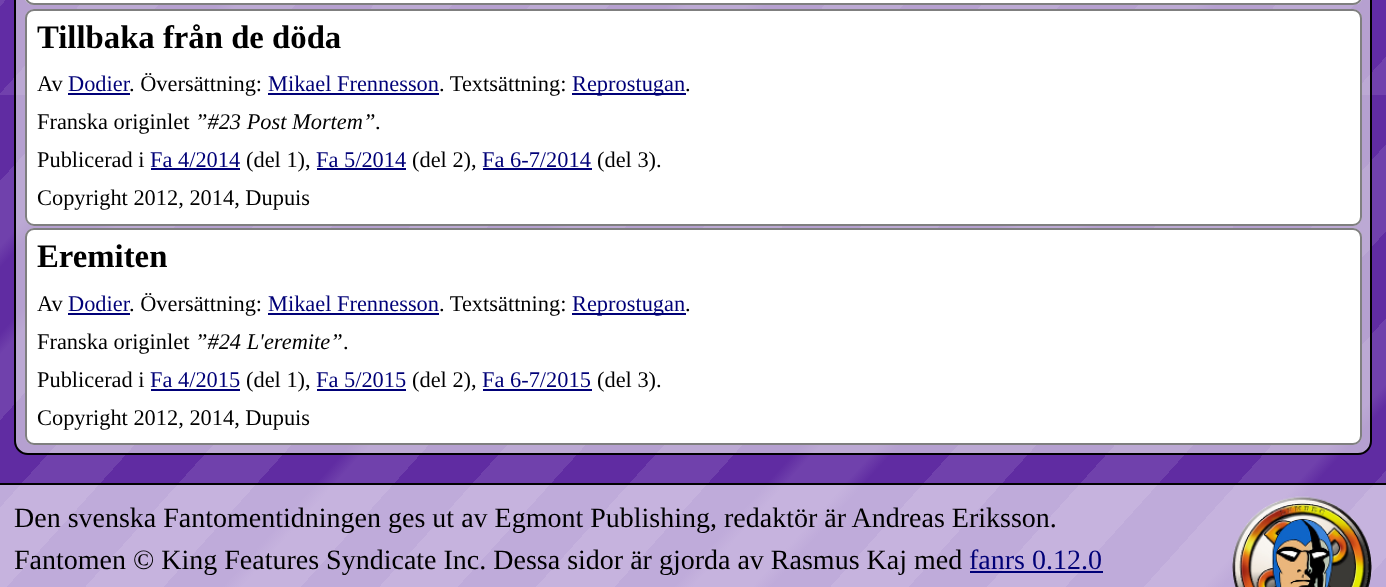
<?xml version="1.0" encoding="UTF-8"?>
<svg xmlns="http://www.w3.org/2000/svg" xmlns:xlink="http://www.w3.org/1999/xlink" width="1386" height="587">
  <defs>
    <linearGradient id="g1" gradientUnits="userSpaceOnUse" x1="164" y1="-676" x2="1246" y2="299"><stop offset="0" stop-color="#612ca4" /><stop offset="0.04" stop-color="#612ca4" /><stop offset="0.04" stop-color="#7141ad" /><stop offset="0.07" stop-color="#7141ad" /><stop offset="0.08" stop-color="#612ca4" /><stop offset="0.11" stop-color="#612ca4" /><stop offset="0.12" stop-color="#7141ad" /><stop offset="0.15" stop-color="#7141ad" /><stop offset="0.15" stop-color="#612ca4" /><stop offset="0.19" stop-color="#612ca4" /><stop offset="0.19" stop-color="#7141ad" /><stop offset="0.23" stop-color="#7141ad" /><stop offset="0.23" stop-color="#612ca4" /><stop offset="0.27" stop-color="#612ca4" /><stop offset="0.27" stop-color="#7141ad" /><stop offset="0.31" stop-color="#7141ad" /><stop offset="0.31" stop-color="#612ca4" /><stop offset="0.34" stop-color="#612ca4" /><stop offset="0.35" stop-color="#7141ad" /><stop offset="0.38" stop-color="#7141ad" /><stop offset="0.38" stop-color="#612ca4" /><stop offset="0.42" stop-color="#612ca4" /><stop offset="0.42" stop-color="#7141ad" /><stop offset="0.46" stop-color="#7141ad" /><stop offset="0.46" stop-color="#612ca4" /><stop offset="0.5" stop-color="#612ca4" /><stop offset="0.5" stop-color="#7141ad" /><stop offset="0.54" stop-color="#7141ad" /><stop offset="0.54" stop-color="#612ca4" /><stop offset="0.57" stop-color="#612ca4" /><stop offset="0.58" stop-color="#7141ad" /><stop offset="0.61" stop-color="#7141ad" /><stop offset="0.62" stop-color="#612ca4" /><stop offset="0.65" stop-color="#612ca4" /><stop offset="0.65" stop-color="#7141ad" /><stop offset="0.69" stop-color="#7141ad" /><stop offset="0.69" stop-color="#612ca4" /><stop offset="0.73" stop-color="#612ca4" /><stop offset="0.73" stop-color="#7141ad" /><stop offset="0.77" stop-color="#7141ad" /><stop offset="0.77" stop-color="#612ca4" /><stop offset="0.81" stop-color="#612ca4" /><stop offset="0.81" stop-color="#7141ad" /><stop offset="0.84" stop-color="#7141ad" /><stop offset="0.85" stop-color="#612ca4" /><stop offset="0.88" stop-color="#612ca4" /><stop offset="0.88" stop-color="#7141ad" /><stop offset="0.92" stop-color="#7141ad" /><stop offset="0.92" stop-color="#612ca4" /><stop offset="0.96" stop-color="#612ca4" /><stop offset="0.96" stop-color="#7141ad" /><stop offset="1" stop-color="#7141ad" /><stop offset="1" stop-color="#612ca4" /></linearGradient>
    <linearGradient id="g2" gradientUnits="userSpaceOnUse" x1="164" y1="-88" x2="1246" y2="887"><stop offset="0" stop-color="#602ca2" /><stop offset="0.04" stop-color="#602ca2" /><stop offset="0.04" stop-color="#7041ac" /><stop offset="0.07" stop-color="#7041ac" /><stop offset="0.08" stop-color="#602ca2" /><stop offset="0.11" stop-color="#602ca2" /><stop offset="0.12" stop-color="#7041ac" /><stop offset="0.15" stop-color="#7041ac" /><stop offset="0.15" stop-color="#602ca2" /><stop offset="0.19" stop-color="#602ca2" /><stop offset="0.19" stop-color="#7041ac" /><stop offset="0.23" stop-color="#7041ac" /><stop offset="0.23" stop-color="#602ca2" /><stop offset="0.27" stop-color="#602ca2" /><stop offset="0.27" stop-color="#7041ac" /><stop offset="0.31" stop-color="#7041ac" /><stop offset="0.31" stop-color="#602ca2" /><stop offset="0.34" stop-color="#602ca2" /><stop offset="0.35" stop-color="#7041ac" /><stop offset="0.38" stop-color="#7041ac" /><stop offset="0.38" stop-color="#602ca2" /><stop offset="0.42" stop-color="#602ca2" /><stop offset="0.42" stop-color="#7041ac" /><stop offset="0.46" stop-color="#7041ac" /><stop offset="0.46" stop-color="#602ca2" /><stop offset="0.5" stop-color="#602ca2" /><stop offset="0.5" stop-color="#7041ac" /><stop offset="0.54" stop-color="#7041ac" /><stop offset="0.54" stop-color="#602ca2" /><stop offset="0.57" stop-color="#602ca2" /><stop offset="0.58" stop-color="#7041ac" /><stop offset="0.61" stop-color="#7041ac" /><stop offset="0.62" stop-color="#602ca2" /><stop offset="0.65" stop-color="#602ca2" /><stop offset="0.65" stop-color="#7041ac" /><stop offset="0.69" stop-color="#7041ac" /><stop offset="0.69" stop-color="#602ca2" /><stop offset="0.73" stop-color="#602ca2" /><stop offset="0.73" stop-color="#7041ac" /><stop offset="0.77" stop-color="#7041ac" /><stop offset="0.77" stop-color="#602ca2" /><stop offset="0.81" stop-color="#602ca2" /><stop offset="0.81" stop-color="#7041ac" /><stop offset="0.84" stop-color="#7041ac" /><stop offset="0.85" stop-color="#602ca2" /><stop offset="0.88" stop-color="#602ca2" /><stop offset="0.88" stop-color="#7041ac" /><stop offset="0.92" stop-color="#7041ac" /><stop offset="0.92" stop-color="#602ca2" /><stop offset="0.96" stop-color="#602ca2" /><stop offset="0.96" stop-color="#7041ac" /><stop offset="1" stop-color="#7041ac" /><stop offset="1" stop-color="#602ca2" /></linearGradient>
    <linearGradient id="g3" gradientUnits="userSpaceOnUse" x1="164" y1="-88" x2="1246" y2="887"><stop offset="0" stop-color="#bfabda" /><stop offset="0.04" stop-color="#bfabda" /><stop offset="0.04" stop-color="#c6b3de" /><stop offset="0.07" stop-color="#c6b3de" /><stop offset="0.08" stop-color="#bfabda" /><stop offset="0.11" stop-color="#bfabda" /><stop offset="0.12" stop-color="#c6b3de" /><stop offset="0.15" stop-color="#c6b3de" /><stop offset="0.15" stop-color="#bfabda" /><stop offset="0.19" stop-color="#bfabda" /><stop offset="0.19" stop-color="#c6b3de" /><stop offset="0.23" stop-color="#c6b3de" /><stop offset="0.23" stop-color="#bfabda" /><stop offset="0.27" stop-color="#bfabda" /><stop offset="0.27" stop-color="#c6b3de" /><stop offset="0.31" stop-color="#c6b3de" /><stop offset="0.31" stop-color="#bfabda" /><stop offset="0.34" stop-color="#bfabda" /><stop offset="0.35" stop-color="#c6b3de" /><stop offset="0.38" stop-color="#c6b3de" /><stop offset="0.38" stop-color="#bfabda" /><stop offset="0.42" stop-color="#bfabda" /><stop offset="0.42" stop-color="#c6b3de" /><stop offset="0.46" stop-color="#c6b3de" /><stop offset="0.46" stop-color="#bfabda" /><stop offset="0.5" stop-color="#bfabda" /><stop offset="0.5" stop-color="#c6b3de" /><stop offset="0.54" stop-color="#c6b3de" /><stop offset="0.54" stop-color="#bfabda" /><stop offset="0.57" stop-color="#bfabda" /><stop offset="0.58" stop-color="#c6b3de" /><stop offset="0.61" stop-color="#c6b3de" /><stop offset="0.62" stop-color="#bfabda" /><stop offset="0.65" stop-color="#bfabda" /><stop offset="0.65" stop-color="#c6b3de" /><stop offset="0.69" stop-color="#c6b3de" /><stop offset="0.69" stop-color="#bfabda" /><stop offset="0.73" stop-color="#bfabda" /><stop offset="0.73" stop-color="#c6b3de" /><stop offset="0.77" stop-color="#c6b3de" /><stop offset="0.77" stop-color="#bfabda" /><stop offset="0.81" stop-color="#bfabda" /><stop offset="0.81" stop-color="#c6b3de" /><stop offset="0.84" stop-color="#c6b3de" /><stop offset="0.85" stop-color="#bfabda" /><stop offset="0.88" stop-color="#bfabda" /><stop offset="0.88" stop-color="#c6b3de" /><stop offset="0.92" stop-color="#c6b3de" /><stop offset="0.92" stop-color="#bfabda" /><stop offset="0.96" stop-color="#bfabda" /><stop offset="0.96" stop-color="#c6b3de" /><stop offset="1" stop-color="#c6b3de" /><stop offset="1" stop-color="#bfabda" /></linearGradient>
  </defs>
  <rect width="100%" height="100%" fill="#ffffff" />
  <rect width="1386" height="95" fill="url(#g1)" />
  <rect y="95" width="1386" height="388" fill="url(#g2)" />
  <rect y="485" width="1386" height="102" fill="url(#g3)" />
  <rect x="15" y="-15" width="1356" height="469" rx="13" fill="#eeeeee" fill-opacity="0.6" stroke="#000000" stroke-width="2" />
  <rect x="25" y="-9" width="1337" height="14" rx="9" fill="#ffffff" />
  <rect x="26" y="-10" width="1335" height="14" rx="8" fill="none" stroke="#000000" stroke-opacity="0.5" stroke-width="2" />
  <rect x="25" y="9" width="1337" height="217" rx="9" fill="#ffffff" />
  <rect x="26" y="10" width="1335" height="215" rx="8" fill="none" stroke="#000000" stroke-opacity="0.5" stroke-width="2" />
  <rect x="68" y="93" width="62" height="2" fill="#000077" />
  <rect x="268" y="93" width="171" height="2" fill="#000077" />
  <rect x="572" y="93" width="114" height="2" fill="#000077" />
  <rect x="151" y="168" width="89" height="2" fill="#000077" />
  <rect x="317" y="168" width="89" height="2" fill="#000077" />
  <rect x="483" y="168" width="109" height="2" fill="#000077" />
  <rect x="25" y="228" width="1337" height="217" rx="9" fill="#ffffff" />
  <rect x="26" y="229" width="1335" height="215" rx="8" fill="none" stroke="#000000" stroke-opacity="0.5" stroke-width="2" />
  <rect x="68" y="313" width="62" height="2" fill="#000077" />
  <rect x="268" y="313" width="171" height="2" fill="#000077" />
  <rect x="572" y="313" width="114" height="2" fill="#000077" />
  <rect x="151" y="389" width="89" height="2" fill="#000077" />
  <rect x="317" y="389" width="89" height="2" fill="#000077" />
  <rect x="483" y="389" width="109" height="2" fill="#000077" />
  <rect y="483" width="1386" height="2" fill="#000000" />
  <rect x="970" y="571" width="133" height="2" fill="#000077" />
  <image x="1232" y="496" width="140" height="91" xlink:href="image1.png" />
  <text x="37" y="48" style="font-family: Liberation Serif; font-size: 32.75px; font-weight: bold; fill: #000000">Tillbaka från de döda</text>
  <text x="37" y="91" style="font-family: Liberation Serif; font-size: 22.4px; fill: #000000">Av</text>
  <text x="68" y="91" style="font-family: Liberation Serif; font-size: 22.4px; fill: #000077">Dodier</text>
  <text x="129" y="91" style="font-family: Liberation Serif; font-size: 22.4px; fill: #000000">. Översättning:</text>
  <text x="268" y="91" style="font-family: Liberation Serif; font-size: 22.4px; fill: #000077">Mikael Frennesson</text>
  <text x="439" y="91" style="font-family: Liberation Serif; font-size: 22.4px; fill: #000000">. Textsättning:</text>
  <text x="572" y="91" style="font-family: Liberation Serif; font-size: 22.4px; fill: #000077">Reprostugan</text>
  <text x="685" y="91" style="font-family: Liberation Serif; font-size: 22.4px; fill: #000000">.</text>
  <text x="37" y="129" style="font-family: Liberation Serif; font-size: 22.4px; fill: #000000">Franska originlet</text>
  <text x="195" y="129" style="font-family: Liberation Serif; font-size: 22.4px; font-style: italic; fill: #000000">”#23 Post Mortem”</text>
  <text x="375" y="129" style="font-family: Liberation Serif; font-size: 22.4px; fill: #000000">.</text>
  <text x="37" y="167" style="font-family: Liberation Serif; font-size: 22.4px; fill: #000000">Publicerad i</text>
  <text x="150" y="167" style="font-family: Liberation Serif; font-size: 22.4px; fill: #000077">Fa 4/2014</text>
  <text x="246" y="167" style="font-family: Liberation Serif; font-size: 22.4px; fill: #000000">(del 1),</text>
  <text x="316" y="167" style="font-family: Liberation Serif; font-size: 22.4px; fill: #000077">Fa 5/2014</text>
  <text x="412" y="167" style="font-family: Liberation Serif; font-size: 22.4px; fill: #000000">(del 2),</text>
  <text x="482" y="167" style="font-family: Liberation Serif; font-size: 22.4px; fill: #000077">Fa 6-7/2014</text>
  <text x="597" y="167" style="font-family: Liberation Serif; font-size: 22.4px; fill: #000000">(del 3).</text>
  <text x="37" y="205" style="font-family: Liberation Serif; font-size: 22.4px; fill: #000000">Copyright 2012, 2014, Dupuis</text>
  <text x="37" y="267" style="font-family: Liberation Serif; font-size: 32.75px; font-weight: bold; fill: #000000">Eremiten</text>
  <text x="37" y="311" style="font-family: Liberation Serif; font-size: 22.4px; fill: #000000">Av</text>
  <text x="68" y="311" style="font-family: Liberation Serif; font-size: 22.4px; fill: #000077">Dodier</text>
  <text x="129" y="311" style="font-family: Liberation Serif; font-size: 22.4px; fill: #000000">. Översättning:</text>
  <text x="268" y="311" style="font-family: Liberation Serif; font-size: 22.4px; fill: #000077">Mikael Frennesson</text>
  <text x="439" y="311" style="font-family: Liberation Serif; font-size: 22.4px; fill: #000000">. Textsättning:</text>
  <text x="572" y="311" style="font-family: Liberation Serif; font-size: 22.4px; fill: #000077">Reprostugan</text>
  <text x="685" y="311" style="font-family: Liberation Serif; font-size: 22.4px; fill: #000000">.</text>
  <text x="37" y="349" style="font-family: Liberation Serif; font-size: 22.4px; fill: #000000">Franska originlet</text>
  <text x="195" y="349" style="font-family: Liberation Serif; font-size: 22.4px; font-style: italic; fill: #000000">”#24 L'eremite”</text>
  <text x="343" y="349" style="font-family: Liberation Serif; font-size: 22.4px; fill: #000000">.</text>
  <text x="37" y="387" style="font-family: Liberation Serif; font-size: 22.4px; fill: #000000">Publicerad i</text>
  <text x="150" y="387" style="font-family: Liberation Serif; font-size: 22.4px; fill: #000077">Fa 4/2015</text>
  <text x="246" y="387" style="font-family: Liberation Serif; font-size: 22.4px; fill: #000000">(del 1),</text>
  <text x="316" y="387" style="font-family: Liberation Serif; font-size: 22.4px; fill: #000077">Fa 5/2015</text>
  <text x="412" y="387" style="font-family: Liberation Serif; font-size: 22.4px; fill: #000000">(del 2),</text>
  <text x="482" y="387" style="font-family: Liberation Serif; font-size: 22.4px; fill: #000077">Fa 6-7/2015</text>
  <text x="597" y="387" style="font-family: Liberation Serif; font-size: 22.4px; fill: #000000">(del 3).</text>
  <text x="37" y="425" style="font-family: Liberation Serif; font-size: 22.4px; fill: #000000">Copyright 2012, 2014, Dupuis</text>
  <text x="14" y="527" style="font-family: Liberation Serif; font-size: 28px; fill: #000000">Den svenska Fantomentidningen ges ut av Egmont Publishing, redaktör är Andreas Eriksson.</text>
  <text x="14" y="569" style="font-family: Liberation Serif; font-size: 28px; fill: #000000">Fantomen © King Features Syndicate Inc. Dessa sidor är gjorda av Rasmus Kaj med</text>
  <text x="969" y="569" style="font-family: Liberation Serif; font-size: 28px; fill: #000077">fanrs 0.12.0</text>
</svg>
